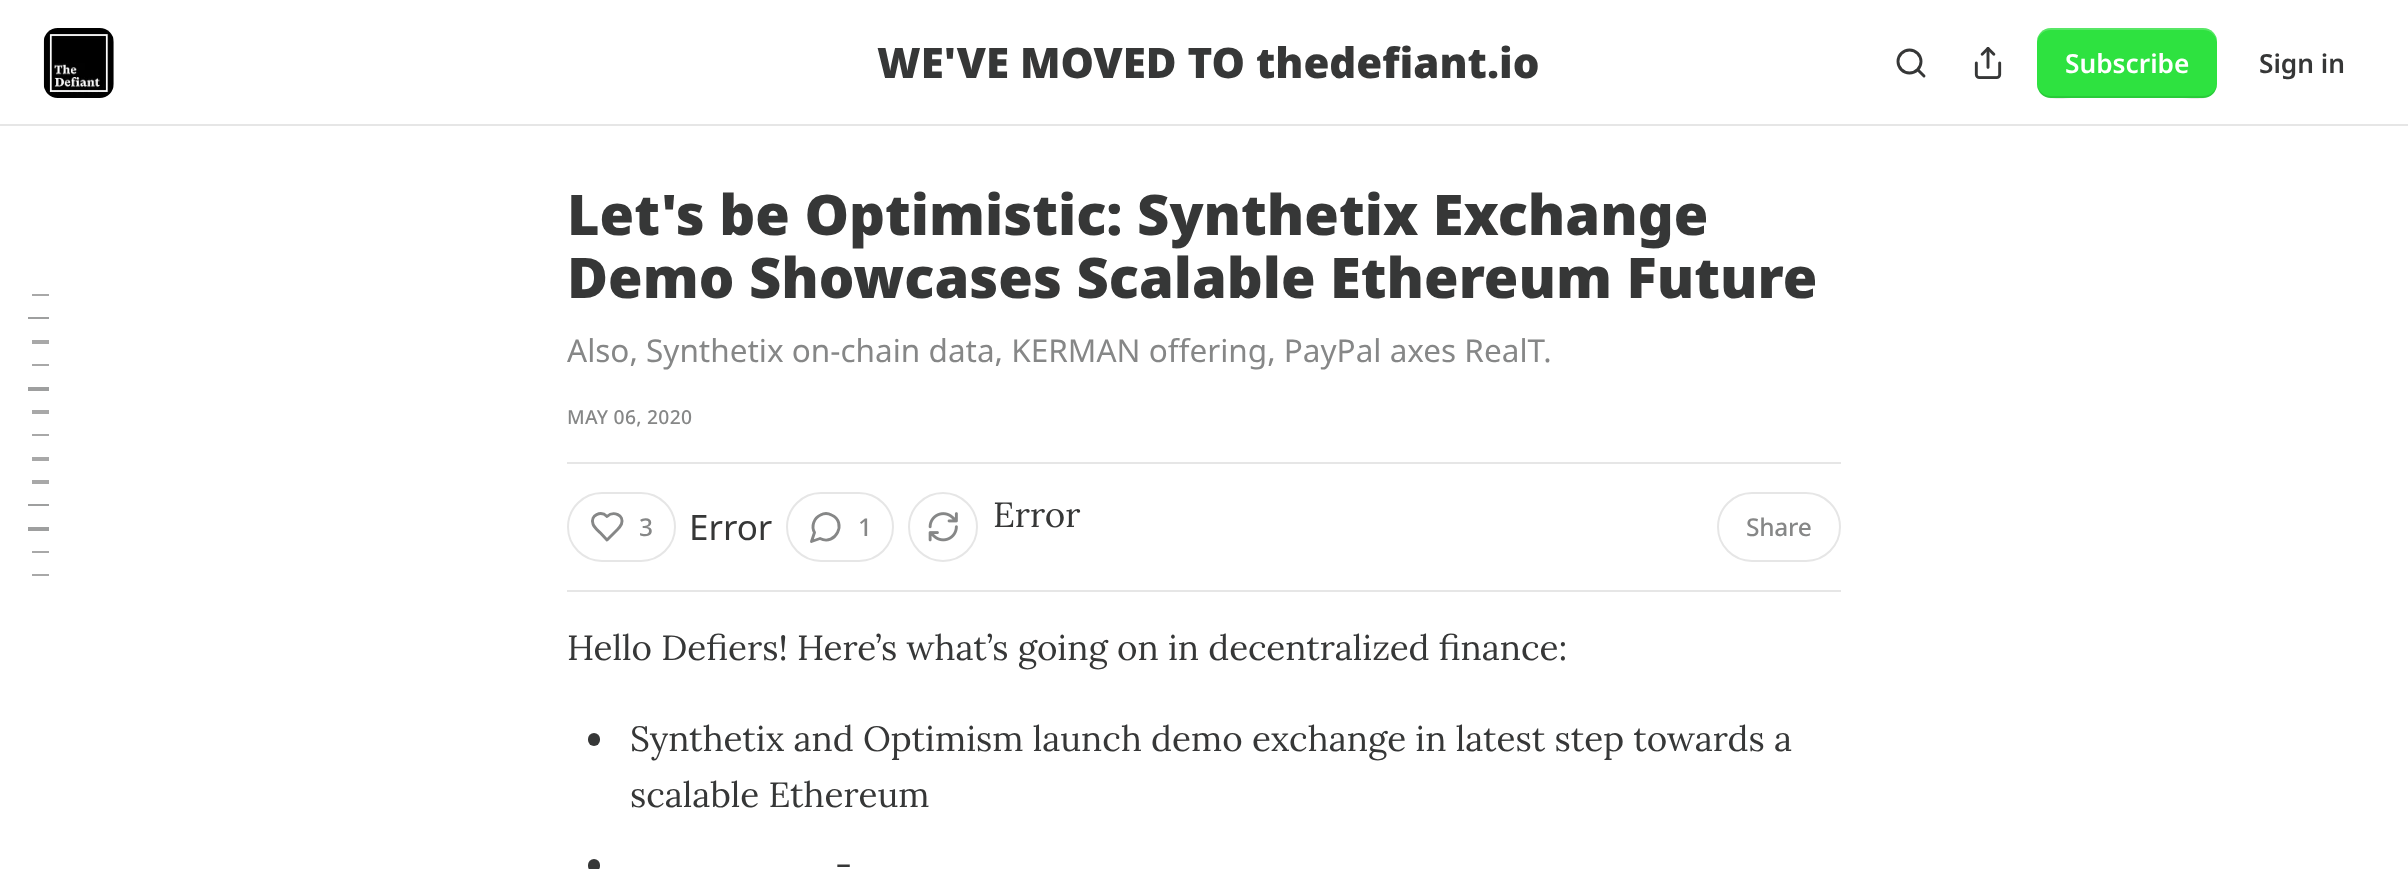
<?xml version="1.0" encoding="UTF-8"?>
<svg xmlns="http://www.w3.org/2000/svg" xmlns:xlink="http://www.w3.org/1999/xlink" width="2408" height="869">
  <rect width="100%" height="100%" fill="#ffffff" />
  <rect y="124" width="2408" height="2" fill="#e6e6e6" />
  <image x="43" y="28" width="71" height="70" xlink:href="image1.png" />
  <circle cx="1909.5" cy="61.5" r="11.5" fill="none" stroke="#363737" stroke-width="2.9" />
  <path d="M 1924 76 l -6 -6" fill="none" stroke="#363737" stroke-width="2.9" stroke-linecap="round" stroke-linejoin="round" />
  <image x="1974" y="47" width="28" height="32" xlink:href="image2.png" />
  <rect x="2037" y="28" width="180" height="70" rx="14" fill="#2ee240" />
  <path d="M 2037 82 c 0 22 24 16 39 16 h 102 c 15 0 39 6 39 -16 c 0 8 -6 14 -14 14 h -152 c -8 0 -14 -6 -14 -14 z" fill="#000000" fill-opacity="0.1" />
  <path d="M 2051 30 h 152 c 8 0 14 6 14 14 c 0 -22 -24 -16 -39 -16 h -102 c -15 0 -39 -6 -39 16 c 0 -8 6 -14 14 -14 z" fill="#ffffff" fill-opacity="0.2" />
  <rect x="567" y="462" width="1274" height="2" fill="#e6e6e6" />
  <rect x="567" y="590" width="1274" height="2" fill="#e6e6e6" />
  <rect x="568" y="493" width="107" height="68" rx="34" fill="none" stroke="#e6e6e6" stroke-width="2" />
  <path d="M 617.5 529.5 c 1.5 -1.5 3 -3.5 4 -5.5 c 3 -9 -8 -13.5 -14.5 -7.5 c -6 -6 -17 -1.5 -14 7.5 c 1 3.5 5 6.5 7.5 9 l 6.5 7 z" fill="none" stroke="#868787" stroke-width="2.9" stroke-linecap="round" stroke-linejoin="round" />
  <rect x="787" y="493" width="106" height="68" rx="34" fill="none" stroke="#e6e6e6" stroke-width="2" />
  <path d="M 820 538.5 c 15.5 8 27.5 -16.5 11.5 -23.5 c -3.5 -2 -7.5 -2 -11 0 c -6.5 3 -9.5 11 -6 17.5 l -3 9 z" fill="none" stroke="#868787" stroke-width="2.9" stroke-linecap="round" stroke-linejoin="round" />
  <circle cx="943" cy="527" r="34" fill="none" stroke="#e6e6e6" stroke-width="2" />
  <image x="928" y="512" width="30" height="30" xlink:href="image3.png" />
  <rect x="1718" y="493" width="122" height="68" rx="34" fill="none" stroke="#e6e6e6" stroke-width="2" />
  <rect x="32" y="294" width="17" height="2" fill="#a8a8a8" />
  <rect x="28" y="317" width="21" height="2" fill="#9e9f9f" />
  <rect x="32" y="340" width="17" height="4" fill="#a8a8a8" />
  <rect x="32" y="364" width="17" height="2" fill="#a8a8a8" />
  <rect x="28" y="387" width="21" height="4" fill="#9e9f9f" />
  <rect x="32" y="410" width="17" height="4" fill="#a8a8a8" />
  <rect x="32" y="434" width="17" height="2" fill="#a8a8a8" />
  <rect x="32" y="457" width="17" height="4" fill="#a8a8a8" />
  <rect x="32" y="480" width="17" height="4" fill="#a8a8a8" />
  <rect x="28" y="504" width="21" height="2" fill="#9e9f9f" />
  <rect x="28" y="527" width="21" height="4" fill="#9e9f9f" />
  <rect x="32" y="551" width="17" height="2" fill="#a8a8a8" />
  <rect x="32" y="574" width="17" height="2" fill="#a8a8a8" />
  <rect x="588" y="733" width="12" height="13" rx="6" fill="#363737" />
  <rect x="588" y="859" width="12" height="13" rx="6" fill="#363737" />
  <text x="877" y="78" style="font-family: Noto Sans; font-size: 42px; font-weight: 900; fill: #363737">WE'VE MOVED TO thedefiant.io</text>
  <text x="2065" y="73" style="font-family: Noto Sans; font-size: 26.25px; font-weight: 600; fill: #ffffff">Subscribe</text>
  <text x="2259" y="73" style="font-family: Noto Sans; font-size: 26.25px; font-weight: 600; fill: #363737">Sign in</text>
  <text x="567" y="235" style="font-family: Noto Sans; font-size: 56px; font-weight: 900; fill: #363737">Let's be Optimistic: Synthetix Exchange</text>
  <text x="567" y="298" style="font-family: Noto Sans; font-size: 56px; font-weight: 900; fill: #363737">Demo Showcases Scalable Ethereum Future</text>
  <text x="567" y="362" style="font-family: Noto Sans; font-size: 31.5px; fill: #868787">Also, Synthetix on-chain data, KERMAN offering, PayPal axes RealT.</text>
  <text x="567" y="424" style="font-family: Noto Sans; font-size: 19.25px; font-weight: 500; letter-spacing: 0.3px; fill: #868787">MAY 06, 2020</text>
  <text x="639" y="536" style="font-family: Noto Sans; font-size: 24.5px; font-weight: 500; letter-spacing: -0.25px; fill: #868787">3</text>
  <text x="689" y="540" style="font-family: Noto Sans; font-size: 35px; fill: #363737">Error</text>
  <text x="858" y="536" style="font-family: Noto Sans; font-size: 24.5px; font-weight: 500; letter-spacing: -0.25px; fill: #868787">1</text>
  <text x="993" y="527" style="font-family: Lora; font-size: 35px; fill: #363737">Error</text>
  <text x="1746" y="536" style="font-family: Noto Sans; font-size: 24.5px; font-weight: 500; letter-spacing: -0.25px; fill: #868787">Share</text>
  <text x="567" y="660" style="font-family: Lora; font-size: 35px; fill: #363737">Hello Defiers! Here’s what’s going on in decentralized finance:</text>
  <text x="630" y="751" style="font-family: Lora; font-size: 35px; fill: #363737">Synthetix and Optimism launch demo exchange in latest step towards a</text>
  <text x="630" y="807" style="font-family: Lora; font-size: 35px; fill: #363737">scalable Ethereum</text>
  <text x="835" y="877" style="font-family: Lora; font-size: 35px; fill: #363737">-</text>
</svg>
